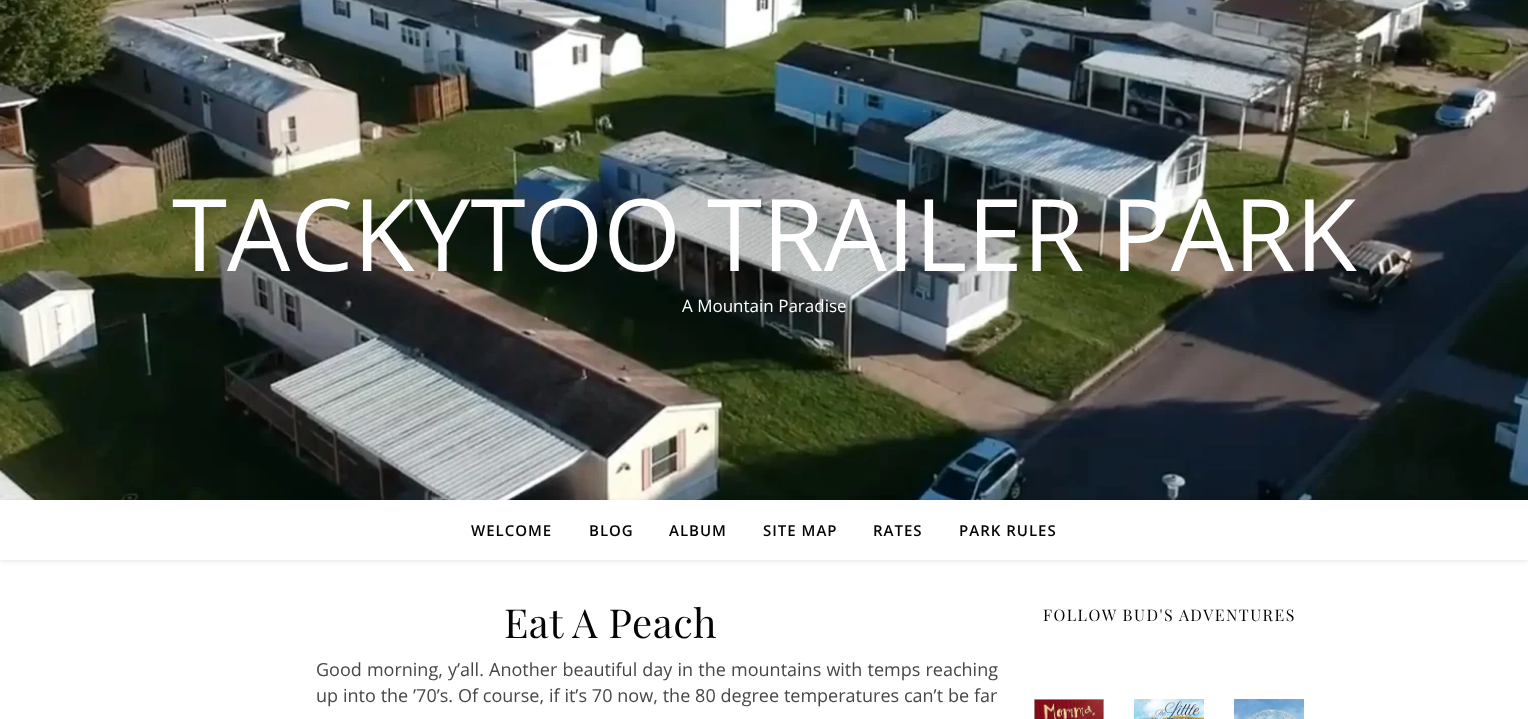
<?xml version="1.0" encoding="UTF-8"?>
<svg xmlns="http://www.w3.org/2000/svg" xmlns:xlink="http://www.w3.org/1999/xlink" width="1528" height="719">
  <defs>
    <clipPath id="clip1"><path d="M 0 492 h 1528 v 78 h -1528 z m 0 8 h 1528 v 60 h -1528 z" clip-rule="evenodd" /></clipPath>
  </defs>
  <rect width="100%" height="100%" fill="#ffffff" />
  <image x="0" y="0" width="1528" height="500" xlink:href="image1.png" />
  <g clip-path="url(#clip1)">
    <rect y="501" width="1528" height="60" fill="#000000" fill-opacity="0.1" filter="blur(2.5px)" />
  </g>
  <image x="1034" y="699" width="70" height="20" xlink:href="image2.png" />
  <image x="1134" y="699" width="70" height="20" xlink:href="image3.png" />
  <image x="1234" y="699" width="70" height="20" xlink:href="image4.png" />
  <text x="172" y="271" style="font-family: Open Sans; font-size: 100px; fill: #ffffff">TACKYTOO TRAILER PARK</text>
  <text x="682" y="312" style="font-family: Open Sans; font-size: 17px; fill: #ffffff">A Mountain Paradise</text>
  <text x="471" y="536" style="font-family: Open Sans; font-size: 15px; font-weight: 600; letter-spacing: 1px; fill: #030303">WELCOME</text>
  <text x="589" y="536" style="font-family: Open Sans; font-size: 15px; font-weight: 600; letter-spacing: 1px; fill: #030303">BLOG</text>
  <text x="669" y="536" style="font-family: Open Sans; font-size: 15px; font-weight: 600; letter-spacing: 1px; fill: #030303">ALBUM</text>
  <text x="763" y="536" style="font-family: Open Sans; font-size: 15px; font-weight: 600; letter-spacing: 1px; fill: #030303">SITE MAP</text>
  <text x="873" y="536" style="font-family: Open Sans; font-size: 15px; font-weight: 600; letter-spacing: 1px; fill: #030303">RATES</text>
  <text x="959" y="536" style="font-family: Open Sans; font-size: 15px; font-weight: 600; letter-spacing: 1px; fill: #030303">PARK RULES</text>
  <text x="504" y="638" style="font-family: Playfair Display; font-size: 40px; letter-spacing: 0.5px; fill: #030303">Eat A Peach</text>
  <text x="316" y="676" word-spacing="0.5" style="font-family: Open Sans; font-size: 18px; fill: #464646">Good morning, y’all. Another beautiful day in the mountains with temps reaching</text>
  <text x="316" y="702" word-spacing="0.2" style="font-family: Open Sans; font-size: 18px; fill: #464646">up into the ’70’s. Of course, if it’s 70 now, the 80 degree temperatures can’t be far</text>
  <text x="1043" y="621" style="font-family: Playfair Display; font-size: 16px; letter-spacing: 1.5px; fill: #030303">FOLLOW BUD'S ADVENTURES</text>
</svg>
